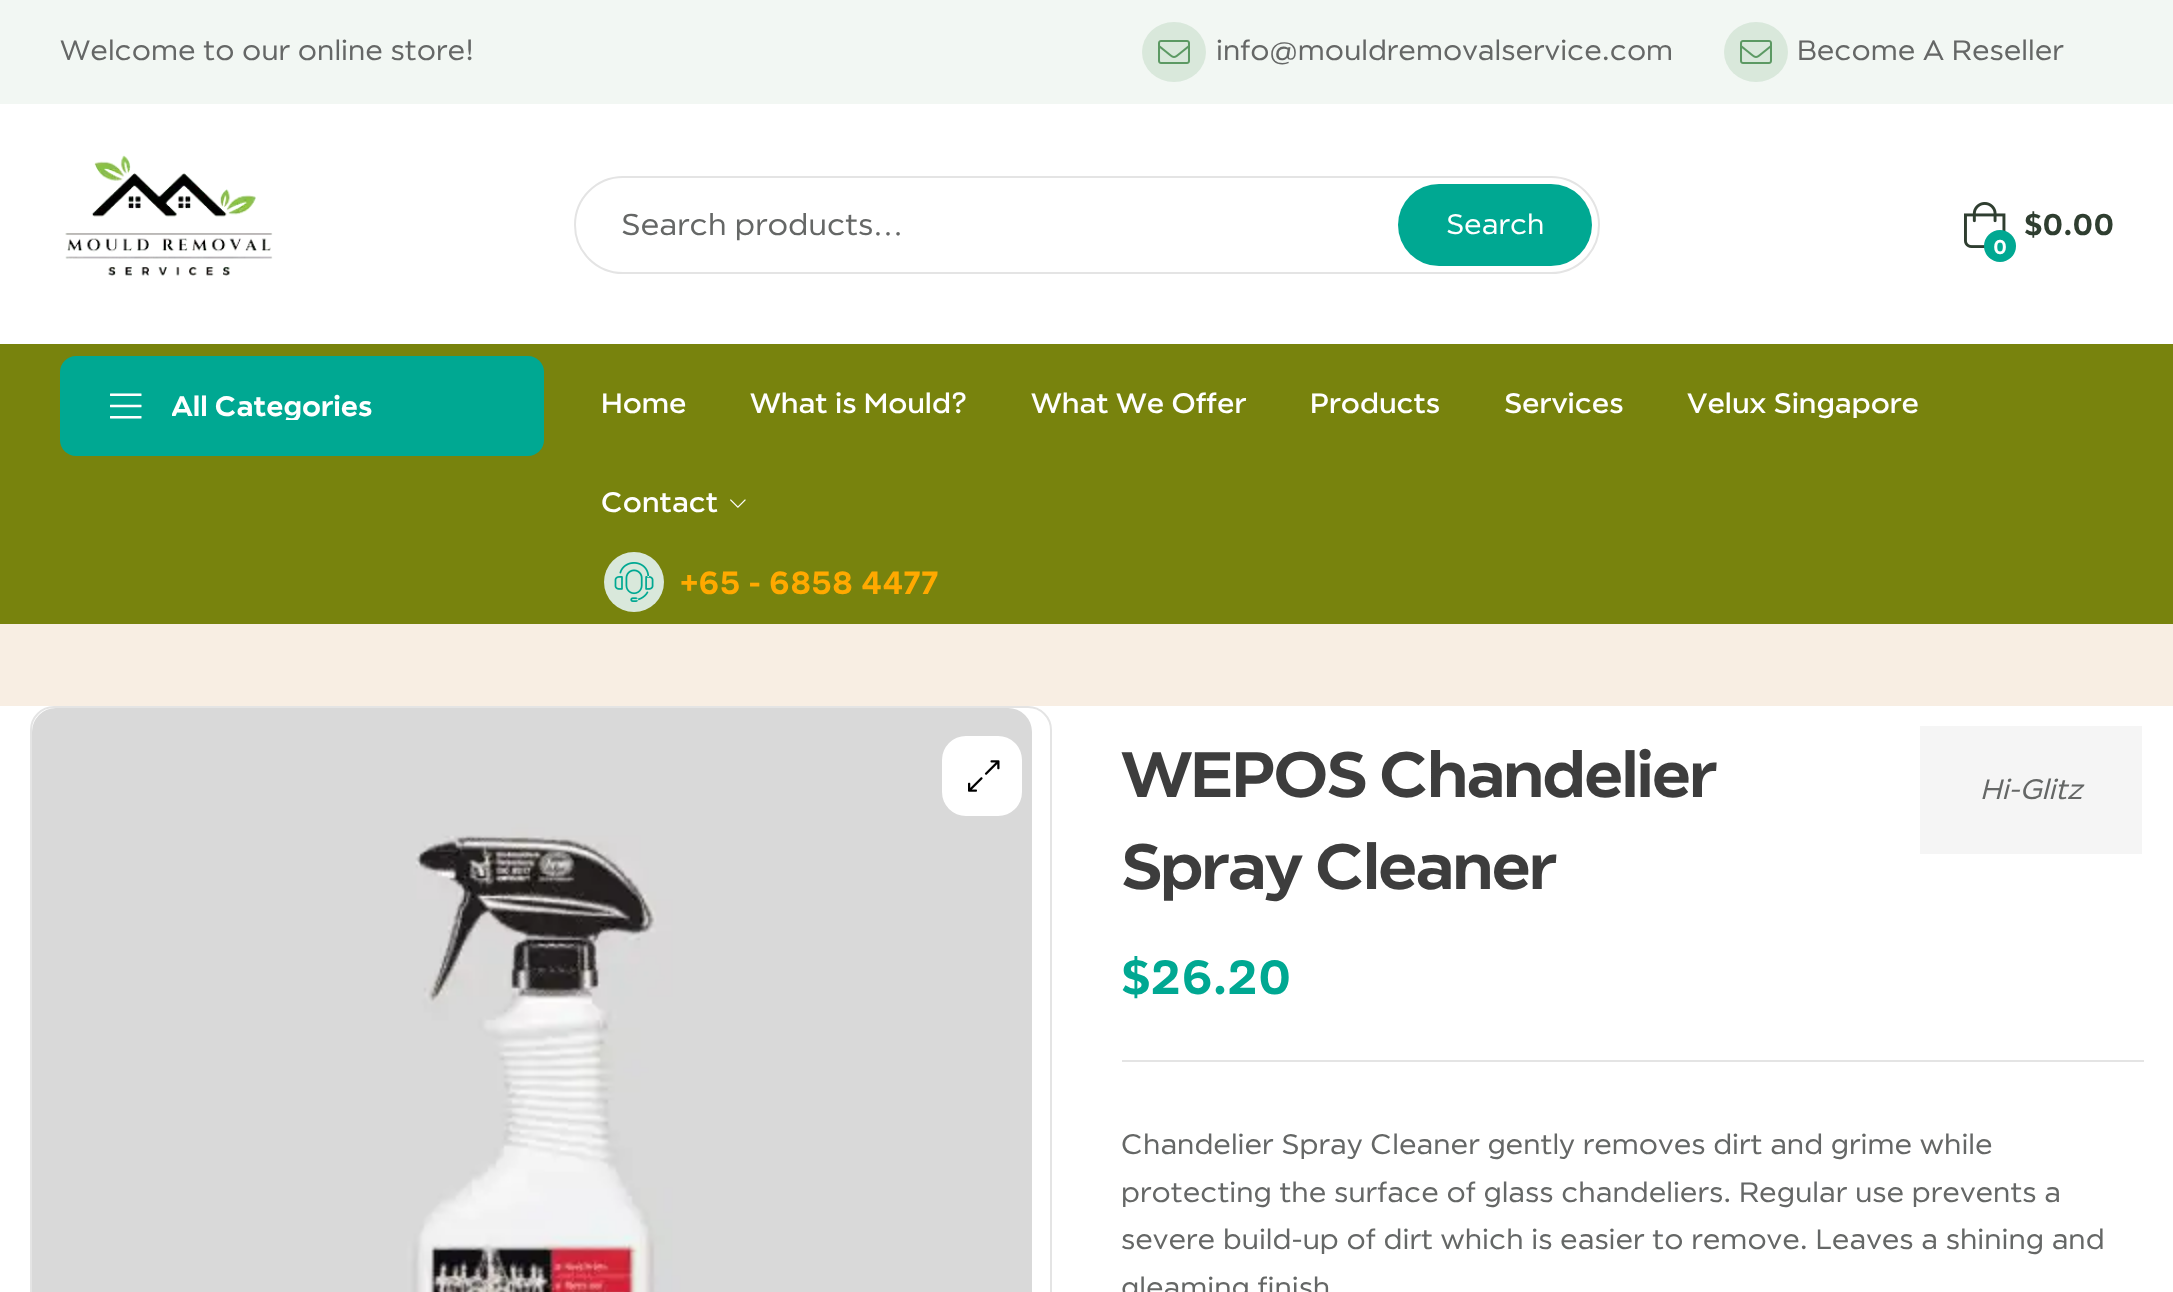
<?xml version="1.0" encoding="UTF-8"?>
<svg xmlns="http://www.w3.org/2000/svg" xmlns:xlink="http://www.w3.org/1999/xlink" width="2173" height="1292">
  <defs>
    <clipPath id="clip1"><rect x="172" y="392" width="200" height="28" /></clipPath>
  </defs>
  <rect width="100%" height="100%" fill="#ffffff" />
  <rect width="2173" height="104" fill="#f2f7f3" />
  <ellipse cx="1174" cy="52" rx="32" ry="30" fill="#d9e8db" />
  <image x="1158" y="40" width="32" height="24" xlink:href="image1.png" />
  <ellipse cx="1756" cy="52" rx="32" ry="30" fill="#d9e8db" />
  <image x="1740" y="40" width="32" height="24" xlink:href="image1.png" />
  <image x="65" y="155" width="208" height="121" xlink:href="image2.png" />
  <rect x="575" y="177" width="1024" height="96" rx="48" fill="none" stroke="#e4e4e4" stroke-width="2" />
  <rect x="1398" y="184" width="194" height="82" rx="41" fill="#00a892" />
  <image x="1964" y="202" width="42" height="46" xlink:href="image3.png" />
  <circle cx="2000" cy="246" r="16" fill="#00a892" />
  <rect y="344" width="2173" height="280" fill="#78830d" />
  <rect x="60" y="356" width="484" height="100" rx="16" fill="#00a892" />
  <image x="110" y="393" width="32" height="26" xlink:href="image4.png" />
  <image x="730" y="499" width="16" height="9" xlink:href="image5.png" />
  <circle cx="634" cy="582" r="30" fill="#d9e8db" />
  <image x="614" y="562" width="40" height="40" xlink:href="image6.png" />
  <rect y="624" width="2173" height="82" fill="#f8eee3" />
  <rect x="31" y="707" width="1020" height="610" rx="23" fill="none" stroke="#e4e4e4" stroke-width="2" />
  <image x="32" y="708" width="1000" height="584" xlink:href="image7.png" />
  <rect x="942" y="736" width="80" height="80" rx="24" fill="#ffffff" />
  <image x="968" y="760" width="32" height="32" xlink:href="image8.png" />
  <rect x="1920" y="726" width="222" height="128" fill="#f5f5f5" />
  <rect x="1122" y="1060" width="1022" height="2" fill="#e4e4e4" />
  <text x="60" y="60" style="font-family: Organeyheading; font-size: 28px; fill: #656766">Welcome to our online store!</text>
  <text x="1216" y="60" style="font-family: Organeyheading; font-size: 28px; fill: #656766">info@mouldremovalservice.com</text>
  <text x="1797" y="60" style="font-family: Organeyheading; font-size: 28px; fill: #656766">Become A Reseller</text>
  <text x="621" y="235" style="font-family: Organeyheading; font-size: 30px; fill: #656766">Search products</text>
  <text x="873" y="235" style="font-family: Liberation Serif; font-size: 30px; fill: #656766">…</text>
  <text x="1446" y="234" style="font-family: Organeyheading; font-size: 28px; fill: #ffffff">Search</text>
  <text x="2024" y="235" style="font-family: Organeyheading; font-size: 30px; font-weight: 600; fill: #2f3e30">$0.00</text>
  <text x="1993" y="254" style="font-family: Organeyheading; font-size: 20px; font-weight: 600; fill: #ffffff">0</text>
  <g clip-path="url(#clip1)">
    <text x="171" y="416" style="font-family: Organeyheading; font-size: 28px; font-weight: 600; fill: #ffffff">All Categories</text>
  </g>
  <text x="601" y="413" style="font-family: Organeyheading; font-size: 28px; font-weight: 500; fill: #ffffff">Home</text>
  <text x="750" y="413" style="font-family: Organeyheading; font-size: 28px; font-weight: 500; fill: #ffffff">What is Mould?</text>
  <text x="1031" y="413" style="font-family: Organeyheading; font-size: 28px; font-weight: 500; fill: #ffffff">What We Offer</text>
  <text x="1310" y="413" style="font-family: Organeyheading; font-size: 28px; font-weight: 500; fill: #ffffff">Products</text>
  <text x="1504" y="413" style="font-family: Organeyheading; font-size: 28px; font-weight: 500; fill: #ffffff">Services</text>
  <text x="1687" y="413" style="font-family: Organeyheading; font-size: 28px; font-weight: 500; fill: #ffffff">Velux Singapore</text>
  <text x="601" y="512" style="font-family: Organeyheading; font-size: 28px; font-weight: 500; fill: #ffffff">Contact</text>
  <text x="680" y="594" style="font-family: Organeyheading; font-size: 32px; font-weight: 600; fill: #ffa900">+65 - 6858 4477</text>
  <text x="1121" y="797" style="font-family: Organeyheading; font-size: 64px; font-weight: 600; letter-spacing: -2px; fill: #3d3d3d">WEPOS Chandelier</text>
  <text x="1121" y="889" style="font-family: Organeyheading; font-size: 64px; font-weight: 600; letter-spacing: -2px; fill: #3d3d3d">Spray Cleaner</text>
  <text x="1980" y="799" style="font-family: Organeyheading; font-size: 28px; font-style: italic; fill: #656766">Hi-Glitz</text>
  <text x="1121" y="994" style="font-family: Organeyheading; font-size: 48px; font-weight: 600; fill: #00a892">$26.20</text>
  <text x="1121" y="1154" style="font-family: Organeyheading; font-size: 28px; fill: #656766">Chandelier Spray Cleaner gently removes dirt and grime while</text>
  <text x="1121" y="1202" style="font-family: Organeyheading; font-size: 28px; fill: #656766">protecting the surface of glass chandeliers. Regular use prevents a</text>
  <text x="1121" y="1249" style="font-family: Organeyheading; font-size: 28px; fill: #656766">severe build-up of dirt which is easier to remove. Leaves a shining and</text>
  <text x="1121" y="1297" style="font-family: Organeyheading; font-size: 28px; fill: #656766">gleaming finish</text>
</svg>
